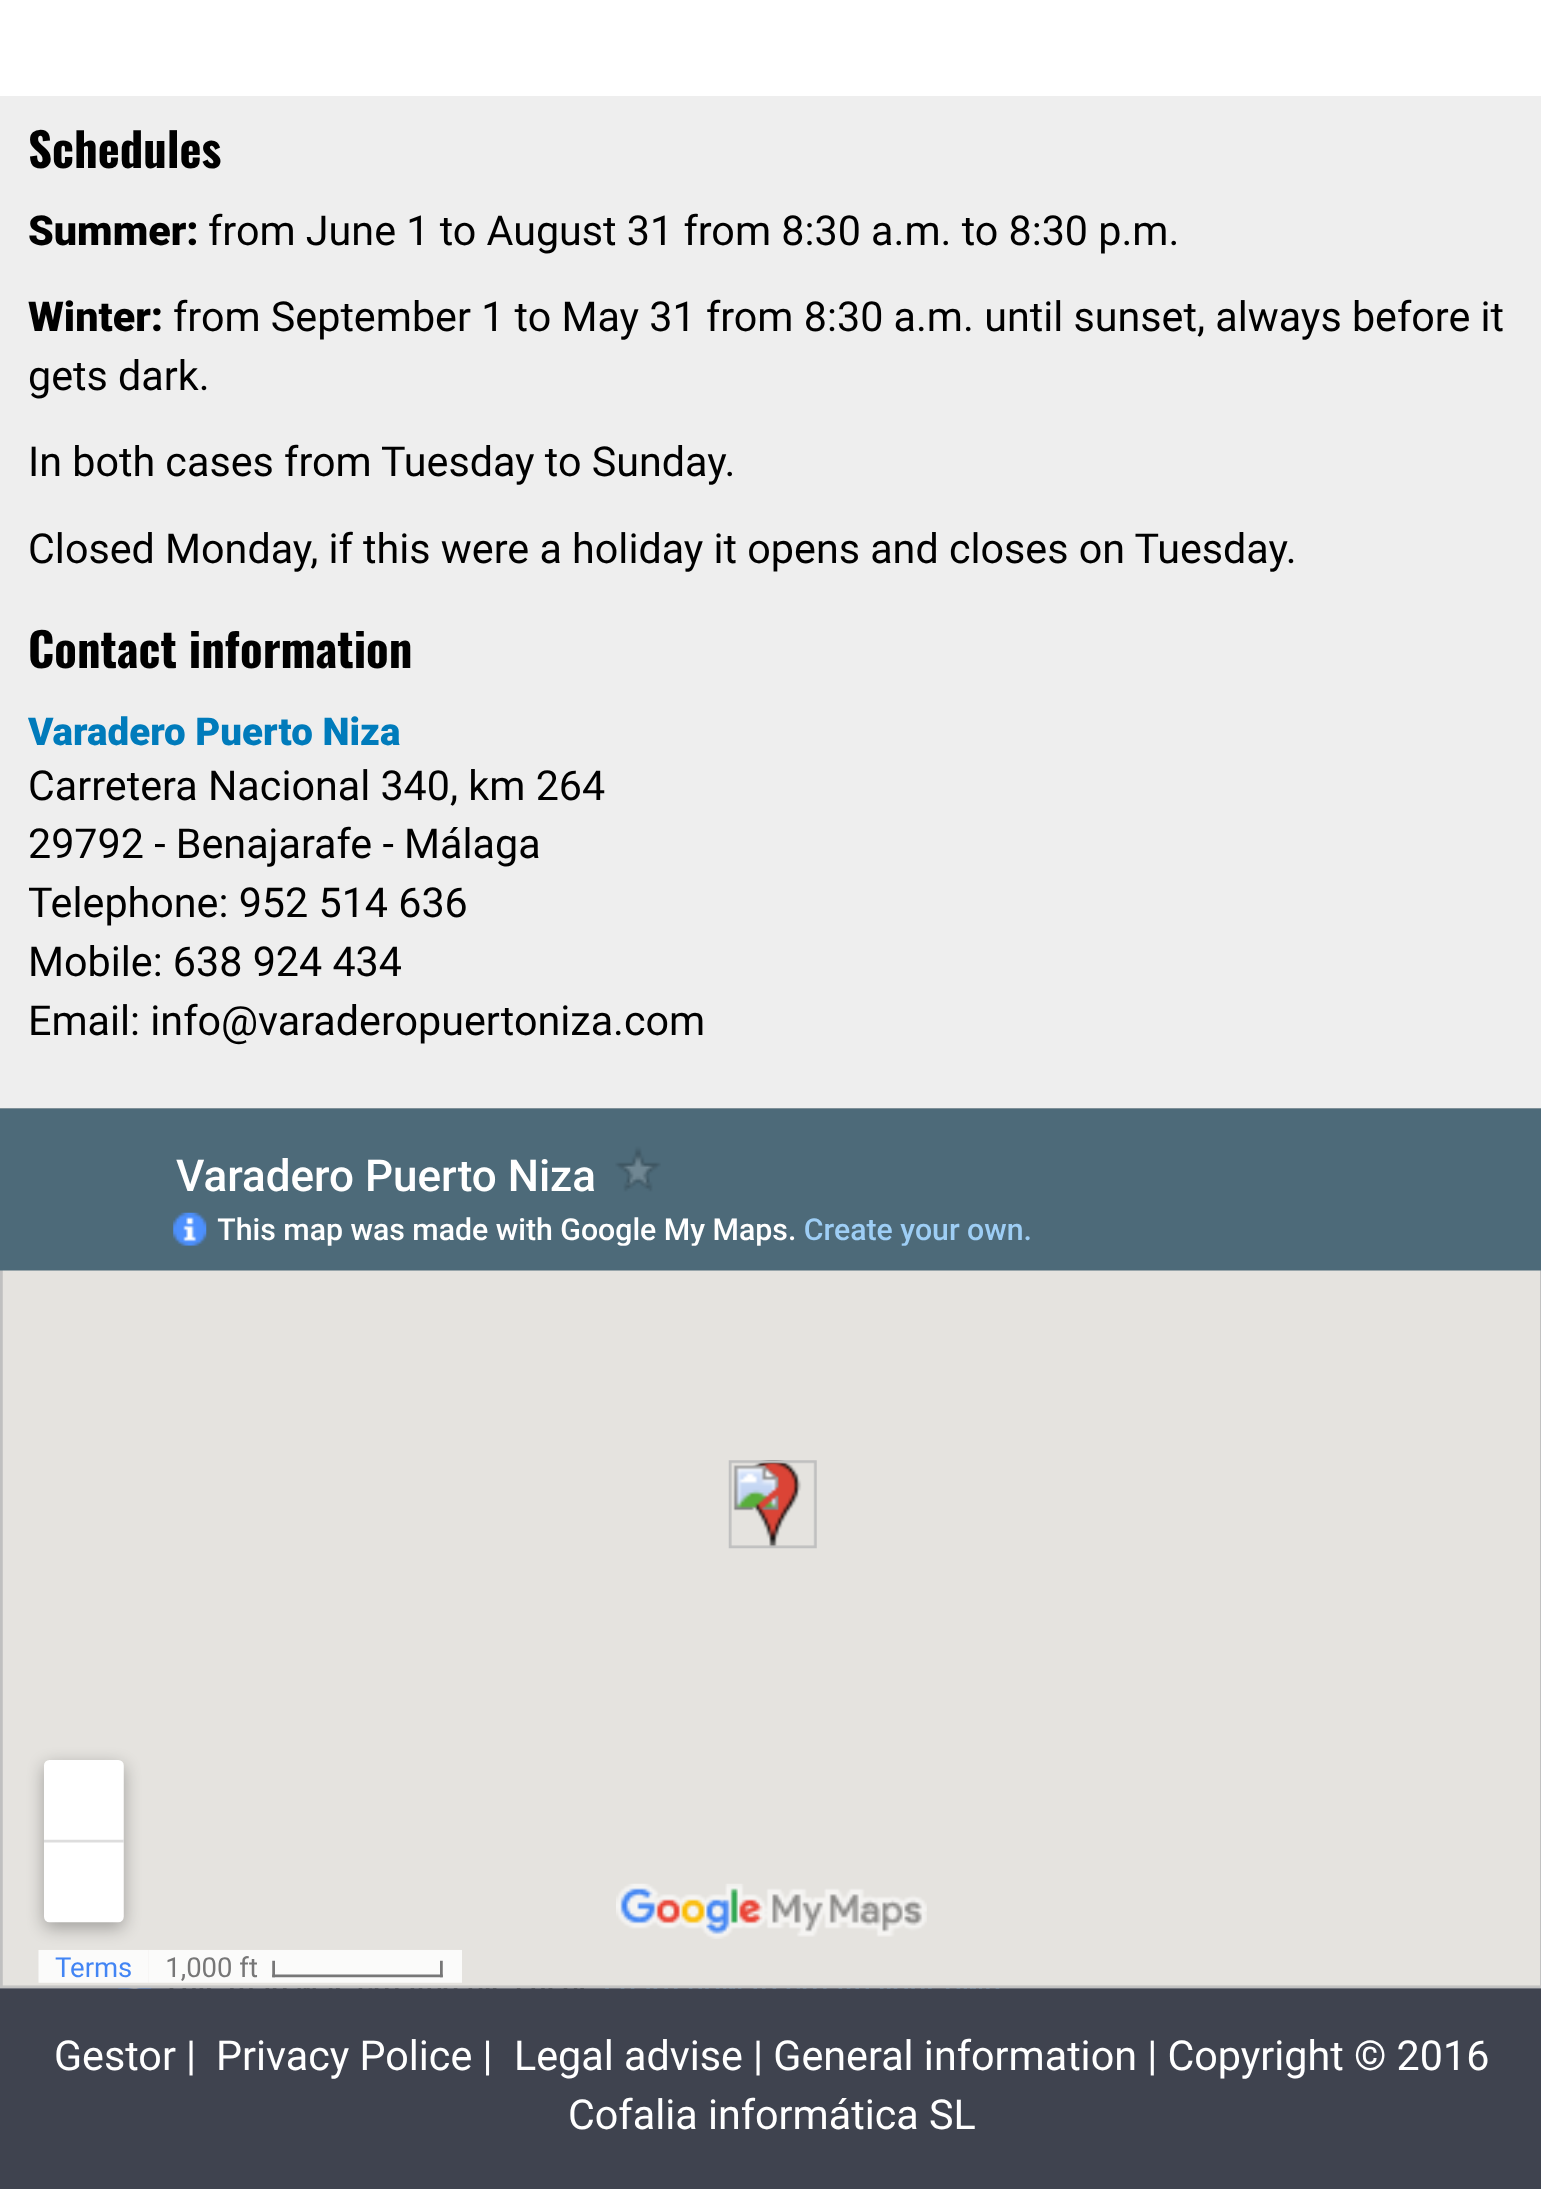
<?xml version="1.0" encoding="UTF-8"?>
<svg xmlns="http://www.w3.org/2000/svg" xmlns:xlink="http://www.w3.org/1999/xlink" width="1541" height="2189">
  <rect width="100%" height="100%" fill="#ffffff" />
  <rect y="96" width="1541" height="1012" fill="#eeeeee" />
  <rect y="1988" width="1541" height="201" fill="#3f434f" />
  <image x="0" y="1108" width="1541" height="881" xlink:href="image1.png" />
  <text x="28" y="168" style="font-family: Oswald; font-size: 46.75px; font-weight: bold; fill: #000000">Schedules</text>
  <text x="28" y="245" style="font-family: Roboto; font-size: 41.25px; font-weight: 900; fill: #000000">Summer:</text>
  <text x="208" y="245" style="font-family: Roboto; font-size: 41.25px; fill: #000000">from June 1 to August 31 from 8:30 a.m. to 8:30 p.m.</text>
  <text x="28" y="331" style="font-family: Roboto; font-size: 41.25px; font-weight: 900; fill: #000000">Winter:</text>
  <text x="173" y="331" style="font-family: Roboto; font-size: 41.25px; fill: #000000">from September 1 to May 31 from 8:30 a.m. until sunset, always before it</text>
  <text x="28" y="390" style="font-family: Roboto; font-size: 41.25px; fill: #000000">gets dark.</text>
  <text x="28" y="476" style="font-family: Roboto; font-size: 41.25px; fill: #000000">In both cases from Tuesday to Sunday.</text>
  <text x="28" y="563" style="font-family: Roboto; font-size: 41.25px; fill: #000000">Closed Monday, if this were a holiday it opens and closes on Tuesday.</text>
  <text x="28" y="668" style="font-family: Oswald; font-size: 46.75px; font-weight: bold; fill: #000000">Contact information</text>
  <text x="28" y="745" style="font-family: Roboto; font-size: 38.5px; font-weight: 900; fill: #007bbb">Varadero Puerto Niza</text>
  <text x="28" y="800" style="font-family: Roboto; font-size: 41.25px; fill: #000000">Carretera Nacional 340, km 264</text>
  <text x="28" y="858" style="font-family: Roboto; font-size: 41.25px; fill: #000000">29792 - Benajarafe - Málaga</text>
  <text x="28" y="917" style="font-family: Roboto; font-size: 41.25px; fill: #000000">Telephone: 952 514 636</text>
  <text x="28" y="976" style="font-family: Roboto; font-size: 41.25px; fill: #000000">Mobile: 638 924 434</text>
  <text x="28" y="1035" style="font-family: Roboto; font-size: 41.25px; fill: #000000">Email: info@varaderopuertoniza.com</text>
  <text x="54" y="2070" style="font-family: Roboto; font-size: 41.25px; fill: #ffffff">Gestor |</text>
  <text x="216" y="2070" style="font-family: Roboto; font-size: 41.25px; fill: #ffffff">Privacy Police |</text>
  <text x="514" y="2070" style="font-family: Roboto; font-size: 41.25px; fill: #ffffff">Legal advise | General information | Copyright © 2016</text>
  <text x="568" y="2129" style="font-family: Roboto; font-size: 41.25px; fill: #ffffff">Cofalia informática SL</text>
</svg>
